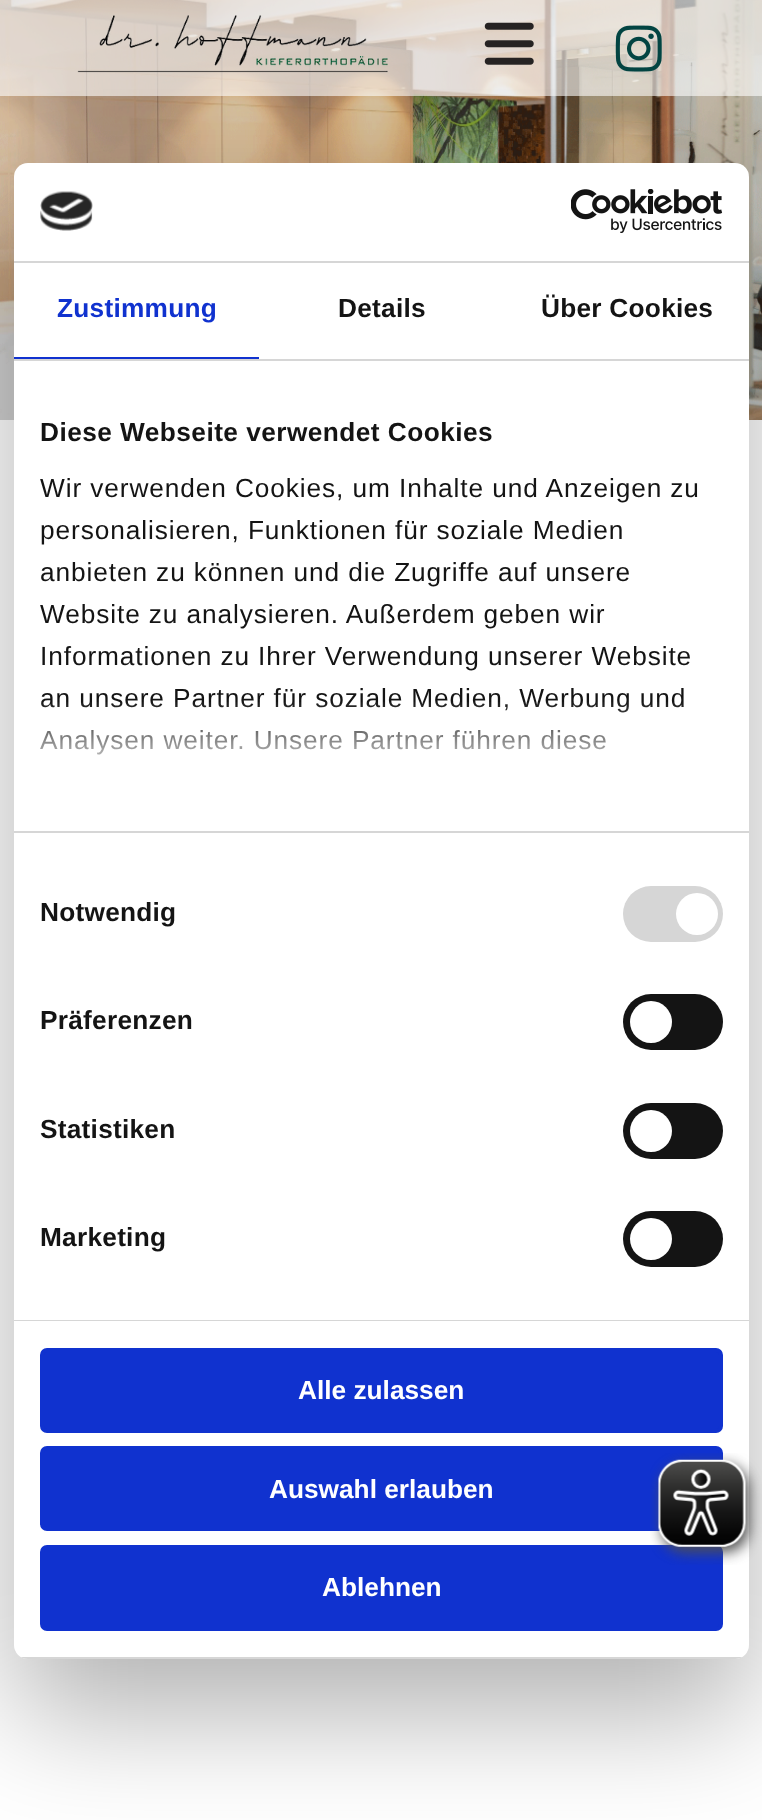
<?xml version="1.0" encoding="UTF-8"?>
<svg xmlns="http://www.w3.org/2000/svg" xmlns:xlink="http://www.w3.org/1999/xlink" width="762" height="1820">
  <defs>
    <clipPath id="clip1"><rect x="14" y="163" width="735" height="1496" rx="14" /></clipPath>
    <linearGradient id="g1" gradientUnits="userSpaceOnUse" x1="370" y1="831" x2="370" y2="700"><stop offset="0" stop-color="#ffffff" /><stop offset="0.5" stop-color="#ffffff" stop-opacity="0.8" /><stop offset="1" stop-color="#ffffff" stop-opacity="0" /></linearGradient>
  </defs>
  <rect width="100%" height="100%" fill="#ffffff" />
  <image x="0" y="0" width="762" height="420" xlink:href="image1.png" />
  <rect width="762" height="96" fill="#ffffff" fill-opacity="0.6" />
  <image x="77" y="15" width="311" height="58" xlink:href="image2.png" />
  <image x="484" y="22" width="50" height="43" xlink:href="image3.png" />
  <image x="615" y="25" width="47" height="47" xlink:href="image4.png" />
  <rect x="14" y="219" width="735" height="1496" rx="14" fill="#000000" fill-opacity="0.3" filter="blur(59.5px)" />
  <rect x="14" y="163" width="735" height="1496" rx="14" fill="#ffffff" />
  <rect x="14" y="261" width="735" height="2" fill="#d6d6d6" />
  <image x="40" y="191" width="53" height="40" xlink:href="image5.png" />
  <image x="571" y="189" width="152" height="44" xlink:href="image6.png" />
  <rect x="14" y="359" width="735" height="2" fill="#d6d6d6" />
  <rect x="14" y="357" width="245" height="2" fill="#1032cf" />
  <rect x="14" y="831" width="735" height="2" fill="#d6d6d6" />
  <rect x="14" y="1320" width="735" height="1" fill="#d6d6d6" />
  <rect x="623" y="886" width="100" height="56" rx="28" fill="#d6d6d6" />
  <circle cx="697" cy="914" r="21" fill="#ffffff" />
  <rect x="623" y="994" width="100" height="56" rx="28" fill="#141414" />
  <circle cx="651" cy="1022" r="21" fill="#ffffff" />
  <rect x="623" y="1103" width="100" height="56" rx="28" fill="#141414" />
  <circle cx="651" cy="1131" r="21" fill="#ffffff" />
  <rect x="623" y="1211" width="100" height="56" rx="28" fill="#141414" />
  <circle cx="651" cy="1239" r="21" fill="#ffffff" />
  <g clip-path="url(#clip1)">
    <rect x="14" y="1657" width="735" height="2" fill="#d6d6d6" />
  </g>
  <rect x="42" y="1350" width="679" height="81" rx="5" fill="#1032cf" stroke="#1032cf" stroke-width="4" />
  <rect x="42" y="1448" width="679" height="81" rx="5" fill="#1032cf" stroke="#1032cf" stroke-width="4" />
  <rect x="42" y="1547" width="679" height="82" rx="5" fill="#1032cf" stroke="#1032cf" stroke-width="4" />
  <image x="650" y="1453" width="112" height="112" xlink:href="image7.png" />
  <text x="57" y="317" style="font-family: Liberation Sans; font-size: 26.25px; font-weight: bold; letter-spacing: 0.25px; fill: #1032cf">Zustimmung</text>
  <text x="338" y="317" style="font-family: Liberation Sans; font-size: 26.25px; font-weight: bold; letter-spacing: 0.25px; fill: #141414">Details</text>
  <text x="541" y="317" style="font-family: Liberation Sans; font-size: 26.25px; font-weight: bold; letter-spacing: 0.25px; fill: #141414">Über Cookies</text>
  <text x="40" y="441" style="font-family: Liberation Sans; font-size: 26.25px; font-weight: bold; letter-spacing: 0.45px; fill: #141414">Diese Webseite verwendet Cookies</text>
  <text x="40" y="497" style="font-family: Liberation Sans; font-size: 26.25px; letter-spacing: 0.9px; fill: #141414">Wir verwenden Cookies, um Inhalte und Anzeigen zu</text>
  <text x="40" y="539" style="font-family: Liberation Sans; font-size: 26.25px; letter-spacing: 0.9px; fill: #141414">personalisieren, Funktionen für soziale Medien</text>
  <text x="40" y="581" style="font-family: Liberation Sans; font-size: 26.25px; letter-spacing: 0.9px; fill: #141414">anbieten zu können und die Zugriffe auf unsere</text>
  <text x="40" y="623" style="font-family: Liberation Sans; font-size: 26.25px; letter-spacing: 0.9px; fill: #141414">Website zu analysieren. Außerdem geben wir</text>
  <text x="40" y="665" style="font-family: Liberation Sans; font-size: 26.25px; letter-spacing: 0.9px; fill: #141414">Informationen zu Ihrer Verwendung unserer Website</text>
  <text x="40" y="707" style="font-family: Liberation Sans; font-size: 26.25px; letter-spacing: 0.9px; fill: #141414">an unsere Partner für soziale Medien, Werbung und</text>
  <text x="40" y="749" style="font-family: Liberation Sans; font-size: 26.25px; letter-spacing: 0.9px; fill: #141414">Analysen weiter. Unsere Partner führen diese</text>
  <rect x="40" y="702" width="643" height="53" fill="url(#g1)" />
  <text x="40" y="921" style="font-family: Liberation Sans; font-size: 26.25px; font-weight: bold; letter-spacing: 0.25px; fill: #141414">Notwendig</text>
  <text x="40" y="1029" style="font-family: Liberation Sans; font-size: 26.25px; font-weight: bold; letter-spacing: 0.25px; fill: #141414">Präferenzen</text>
  <text x="40" y="1138" style="font-family: Liberation Sans; font-size: 26.25px; font-weight: bold; letter-spacing: 0.25px; fill: #141414">Statistiken</text>
  <text x="40" y="1246" style="font-family: Liberation Sans; font-size: 26.25px; font-weight: bold; letter-spacing: 0.25px; fill: #141414">Marketing</text>
  <text x="298" y="1399" style="font-family: Liberation Sans; font-size: 26.25px; font-weight: bold; fill: #ffffff">Alle zulassen</text>
  <text x="269" y="1498" style="font-family: Liberation Sans; font-size: 26.25px; font-weight: bold; fill: #ffffff">Auswahl erlauben</text>
  <text x="322" y="1596" style="font-family: Liberation Sans; font-size: 26.25px; font-weight: bold; fill: #ffffff">Ablehnen</text>
</svg>
